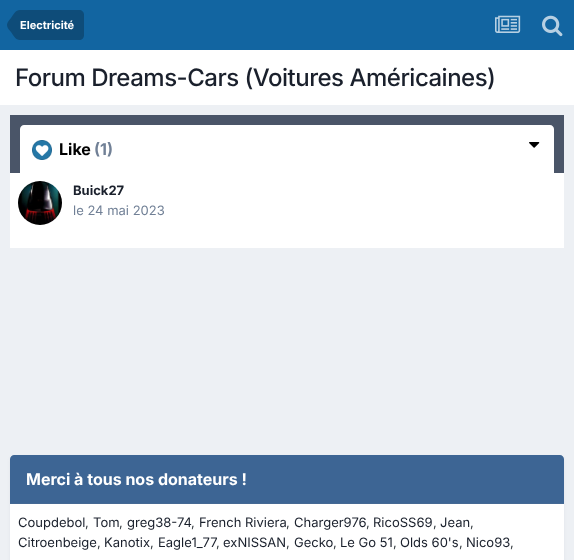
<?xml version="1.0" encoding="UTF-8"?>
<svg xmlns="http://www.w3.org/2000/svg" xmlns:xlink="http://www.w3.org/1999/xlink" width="574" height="560">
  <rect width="100%" height="100%" fill="#edf0f4" />
  <rect width="574" height="50" fill="#1265a1" />
  <path d="M 20 10 h 59 c 3 0 5 2 5 5 v 20 c 0 3 -2 5 -5 5 h -59 z" fill="#0e4c79" />
  <path d="M 20 25 v 15 c -4.5 0 -6.5 -4.5 -9 -8 c -1.5 -2 -4 -4 -4 -7 z m 0 0 h -13 c 0 -3 2.5 -5 4 -7 c 2.5 -3.5 4.5 -8 9 -8 z" fill="#0e4c79" />
  <image x="495" y="15" width="26" height="18" xlink:href="image1.png" />
  <image x="542" y="15" width="21" height="22" xlink:href="image2.png" />
  <rect y="50" width="574" height="55" fill="#ffffff" />
  <rect x="10" y="115" width="554" height="58" fill="#4a5568" />
  <path d="M 24 125 h 526 c 2 0 4 2 4 4 v 44 h -534 v -44 c 0 -2 2 -4 4 -4 z" fill="#ffffff" />
  <image x="32" y="140" width="20" height="20" xlink:href="image3.png" />
  <image x="529" y="142" width="11" height="6" xlink:href="image4.png" />
  <rect x="10" y="173" width="554" height="75" fill="#ffffff" />
  <image x="18" y="181" width="44" height="44" xlink:href="image5.png" />
  <rect x="11" y="458" width="552" height="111" rx="3" fill="#2d3748" fill-opacity="0.1" filter="blur(2px)" />
  <rect x="10" y="455" width="554" height="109" rx="4" fill="#ffffff" />
  <path d="M 14 455 h 546 c 2 0 4 2 4 4 v 45 h -554 v -45 c 0 -2 2 -4 4 -4 z" fill="#3d6594" />
  <rect x="10" y="503" width="554" height="1" fill="#456994" />
  <text x="20" y="29" style="font-family: Inter; font-size: 11px; font-weight: bold; fill: #ffffff">Electricité</text>
  <text x="15" y="86" style="font-family: Inter; font-size: 24px; font-weight: 500; letter-spacing: -0.5px; fill: #1a202c">Forum Dreams-Cars (Voitures Américaines)</text>
  <text x="59" y="155" style="font-family: Inter; font-size: 16px; font-weight: bold; fill: #000000">Like</text>
  <text x="94" y="155" style="font-family: Inter; font-size: 16px; font-weight: bold; fill: #718096">(1)</text>
  <text x="73" y="195" style="font-family: Inter; font-size: 13px; font-weight: bold; fill: #1a202c">Buick27</text>
  <text x="73" y="215" style="font-family: Inter; font-size: 13px; fill: #718096">le 24 mai 2023</text>
  <text x="26" y="485" style="font-family: Inter; font-size: 16px; font-weight: bold; fill: #ffffff">Merci à tous nos donateurs !</text>
  <text x="18" y="527" style="font-family: Inter; font-size: 13px; fill: #1a202c">Coupdebol</text>
  <text x="85" y="527" style="font-family: Inter; font-size: 13px; fill: #353c41">,</text>
  <text x="93" y="527" style="font-family: Inter; font-size: 13px; fill: #1a202c">Tom</text>
  <text x="119" y="527" style="font-family: Inter; font-size: 13px; fill: #353c41">,</text>
  <text x="127" y="527" style="font-family: Inter; font-size: 13px; fill: #1a202c">greg38-74</text>
  <text x="191" y="527" style="font-family: Inter; font-size: 13px; fill: #353c41">,</text>
  <text x="199" y="527" style="font-family: Inter; font-size: 13px; fill: #1a202c">French Riviera</text>
  <text x="286" y="527" style="font-family: Inter; font-size: 13px; fill: #353c41">,</text>
  <text x="294" y="527" style="font-family: Inter; font-size: 13px; fill: #1a202c">Charger976</text>
  <text x="366" y="527" style="font-family: Inter; font-size: 13px; fill: #353c41">,</text>
  <text x="373" y="527" style="font-family: Inter; font-size: 13px; fill: #1a202c">RicoSS69</text>
  <text x="433" y="527" style="font-family: Inter; font-size: 13px; fill: #353c41">,</text>
  <text x="440" y="527" style="font-family: Inter; font-size: 13px; fill: #1a202c">Jean</text>
  <text x="470" y="527" style="font-family: Inter; font-size: 13px; fill: #353c41">,</text>
  <text x="18" y="547" style="font-family: Inter; font-size: 13px; fill: #1a202c">Citroenbeige</text>
  <text x="97" y="547" style="font-family: Inter; font-size: 13px; fill: #353c41">,</text>
  <text x="104" y="547" style="font-family: Inter; font-size: 13px; fill: #1a202c">Kanotix</text>
  <text x="150" y="547" style="font-family: Inter; font-size: 13px; fill: #353c41">,</text>
  <text x="158" y="547" style="font-family: Inter; font-size: 13px; fill: #1a202c">Eagle1_77</text>
  <text x="216" y="547" style="font-family: Inter; font-size: 13px; fill: #353c41">,</text>
  <text x="223" y="547" style="font-family: Inter; font-size: 13px; fill: #1a202c">exNISSAN</text>
  <text x="286" y="547" style="font-family: Inter; font-size: 13px; fill: #353c41">,</text>
  <text x="294" y="547" style="font-family: Inter; font-size: 13px; fill: #1a202c">Gecko</text>
  <text x="333" y="547" style="font-family: Inter; font-size: 13px; fill: #353c41">,</text>
  <text x="340" y="547" style="font-family: Inter; font-size: 13px; fill: #1a202c">Le Go 51</text>
  <text x="393" y="547" style="font-family: Inter; font-size: 13px; fill: #353c41">,</text>
  <text x="400" y="547" style="font-family: Inter; font-size: 13px; fill: #1a202c">Olds 60's</text>
  <text x="459" y="547" style="font-family: Inter; font-size: 13px; fill: #353c41">,</text>
  <text x="466" y="547" style="font-family: Inter; font-size: 13px; fill: #1a202c">Nico93</text>
  <text x="510" y="547" style="font-family: Inter; font-size: 13px; fill: #353c41">,</text>
</svg>
